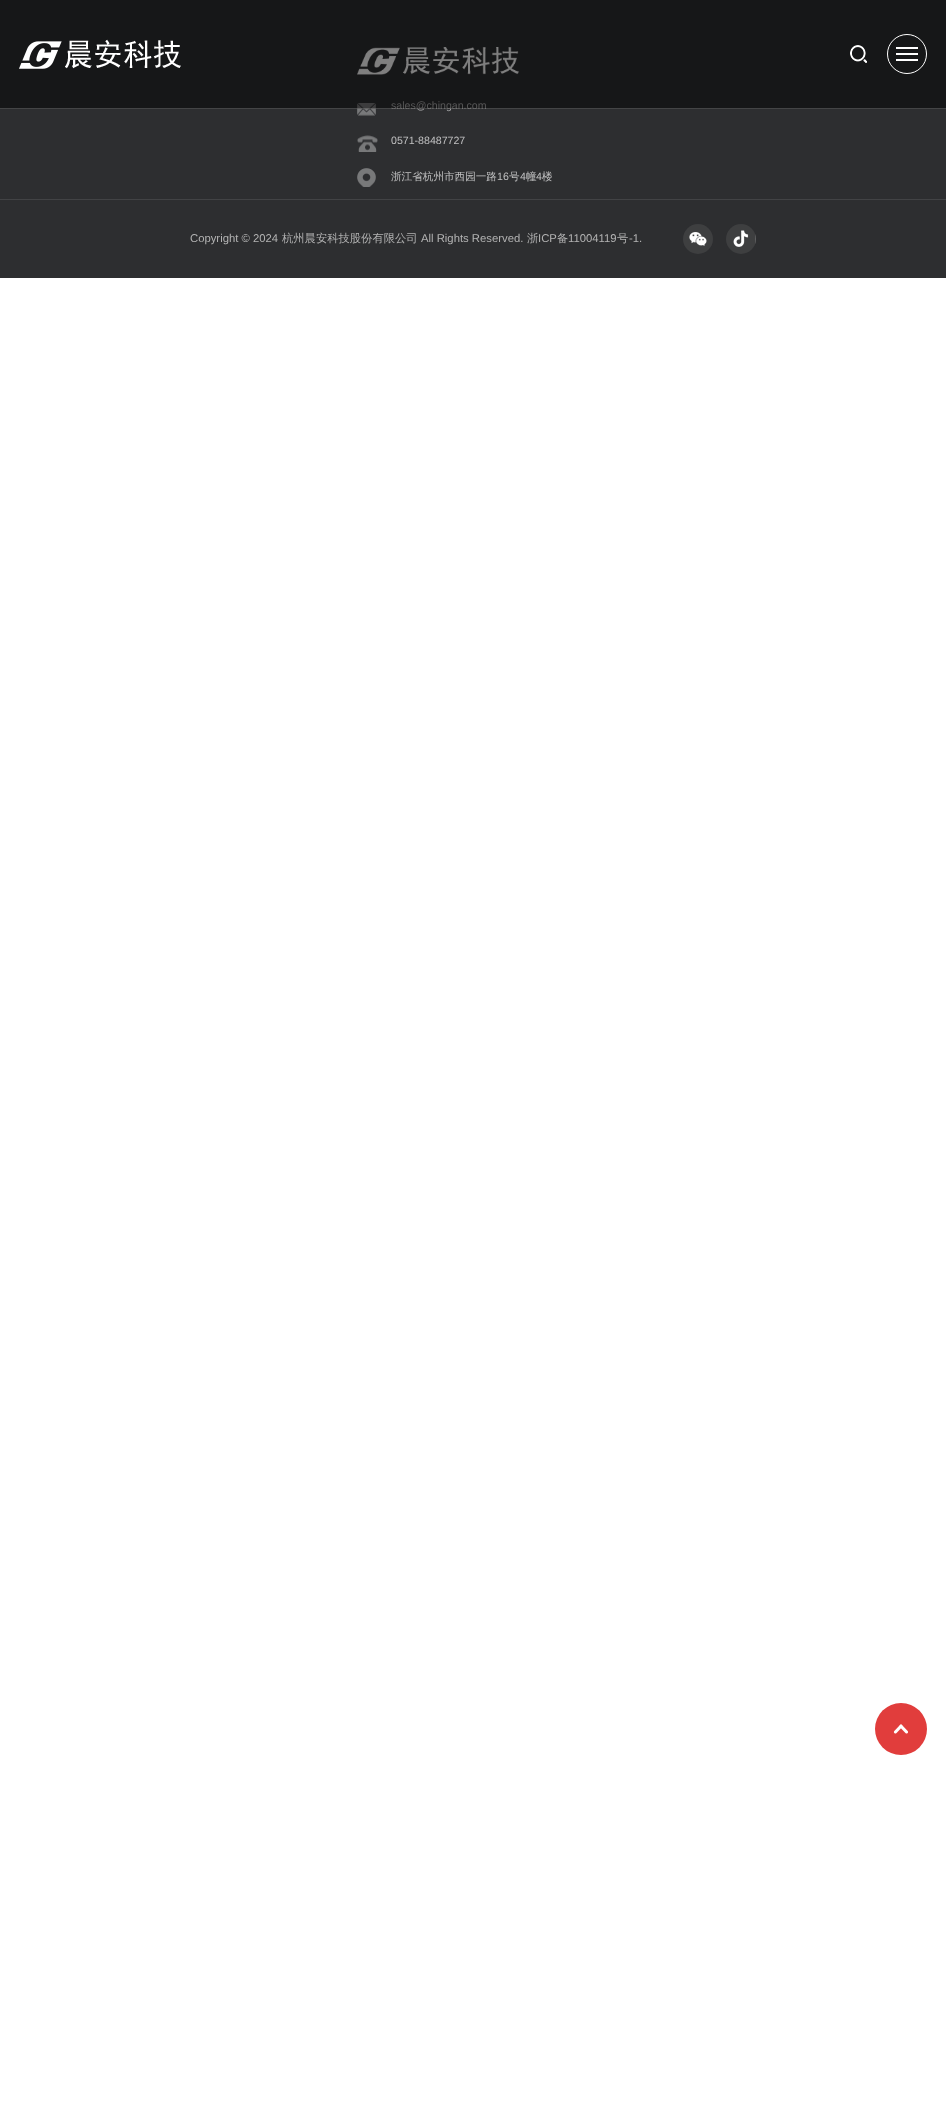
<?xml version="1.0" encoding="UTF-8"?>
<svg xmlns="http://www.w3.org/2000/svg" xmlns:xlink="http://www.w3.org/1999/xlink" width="946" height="2127">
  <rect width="100%" height="100%" fill="#ffffff" />
  <rect width="946" height="278" fill="#2d2e30" />
  <image x="357" y="47" width="162" height="28" xlink:href="image3.png" />
  <image x="357" y="103" width="19" height="13" xlink:href="image4.png" />
  <image x="357" y="135" width="21" height="17" xlink:href="image5.png" />
  <image x="357" y="168" width="19" height="19" xlink:href="image6.png" />
  <rect y="199" width="946" height="1" fill="#424345" />
  <circle cx="698" cy="239" r="15" fill="#3e3f40" />
  <image x="689" y="232" width="18" height="14" xlink:href="image7.png" />
  <circle cx="741" cy="239" r="15" fill="#3e3f40" />
  <image x="733" y="230" width="23" height="17" xlink:href="image8.png" />
  <circle cx="901" cy="1729" r="26" fill="#e13d3c" />
  <image x="893" y="1724" width="15" height="10" xlink:href="image9.png" />
  <text x="391" y="109" style="font-family: Liberation Sans; font-size: 10.6px; fill: #ababac">sales@chingan.com</text>
  <rect width="946" height="109" fill="#000000" fill-opacity="0.5" />
  <image x="850" y="45" width="17" height="18" xlink:href="image2.png" />
  <circle cx="907" cy="54" r="19.5" fill="none" stroke="#ffffff" />
  <rect x="896" y="47" width="22" height="2" fill="#ffffff" />
  <rect x="896" y="59" width="22" height="2" fill="#ffffff" />
  <rect x="896" y="53" width="22" height="2" fill="#ffffff" />
  <image x="19" y="39" width="162" height="30" xlink:href="image1.png" />
  <rect y="108" width="946" height="1" fill="#ffffff" fill-opacity="0.2" />
  <text x="391" y="144" style="font-family: Liberation Sans; font-size: 10.6px; fill: #c0c0c1">0571-88487727</text>
  <text x="391" y="180" style="font-family: WenQuanYi Zen Hei; font-size: 10.6px; font-weight: 500; fill: #c0c0c1">浙江省杭州市西园一路</text>
  <text x="497" y="180" style="font-family: Liberation Sans; font-size: 10.6px; fill: #c0c0c1">16</text>
  <text x="509" y="180" style="font-family: WenQuanYi Zen Hei; font-size: 10.6px; font-weight: 500; fill: #c0c0c1">号</text>
  <text x="520" y="180" style="font-family: Liberation Sans; font-size: 10.6px; fill: #c0c0c1">4</text>
  <text x="526" y="180" style="font-family: WenQuanYi Zen Hei; font-size: 10.6px; font-weight: 500; fill: #c0c0c1">幢</text>
  <text x="536" y="180" style="font-family: Liberation Sans; font-size: 10.6px; fill: #c0c0c1">4</text>
  <text x="542" y="180" style="font-family: WenQuanYi Zen Hei; font-size: 10.6px; font-weight: 500; fill: #c0c0c1">楼</text>
  <text x="190" y="242" style="font-family: Liberation Sans; font-size: 11.3px; fill: #b3b3b3">Copyright © 2024</text>
  <text x="282" y="242" style="font-family: WenQuanYi Zen Hei; font-size: 11.3px; font-weight: 500; fill: #b3b3b3">杭州晨安科技股份有限公司</text>
  <text x="421" y="242" style="font-family: Liberation Sans; font-size: 11.3px; fill: #b3b3b3">All Rights Reserved.</text>
  <text x="527" y="242" style="font-family: WenQuanYi Zen Hei; font-size: 11.3px; font-weight: 500; fill: #b3b3b3">浙</text>
  <text x="538" y="242" style="font-family: Liberation Sans; font-size: 11.3px; fill: #b3b3b3">ICP</text>
  <text x="557" y="242" style="font-family: WenQuanYi Zen Hei; font-size: 11.3px; font-weight: 500; fill: #b3b3b3">备</text>
  <text x="568" y="242" style="font-family: Liberation Sans; font-size: 11.3px; fill: #b3b3b3">11004119</text>
  <text x="617" y="242" style="font-family: WenQuanYi Zen Hei; font-size: 11.3px; font-weight: 500; fill: #b3b3b3">号</text>
  <text x="629" y="242" style="font-family: Liberation Sans; font-size: 11.3px; fill: #b3b3b3">-1.</text>
</svg>
